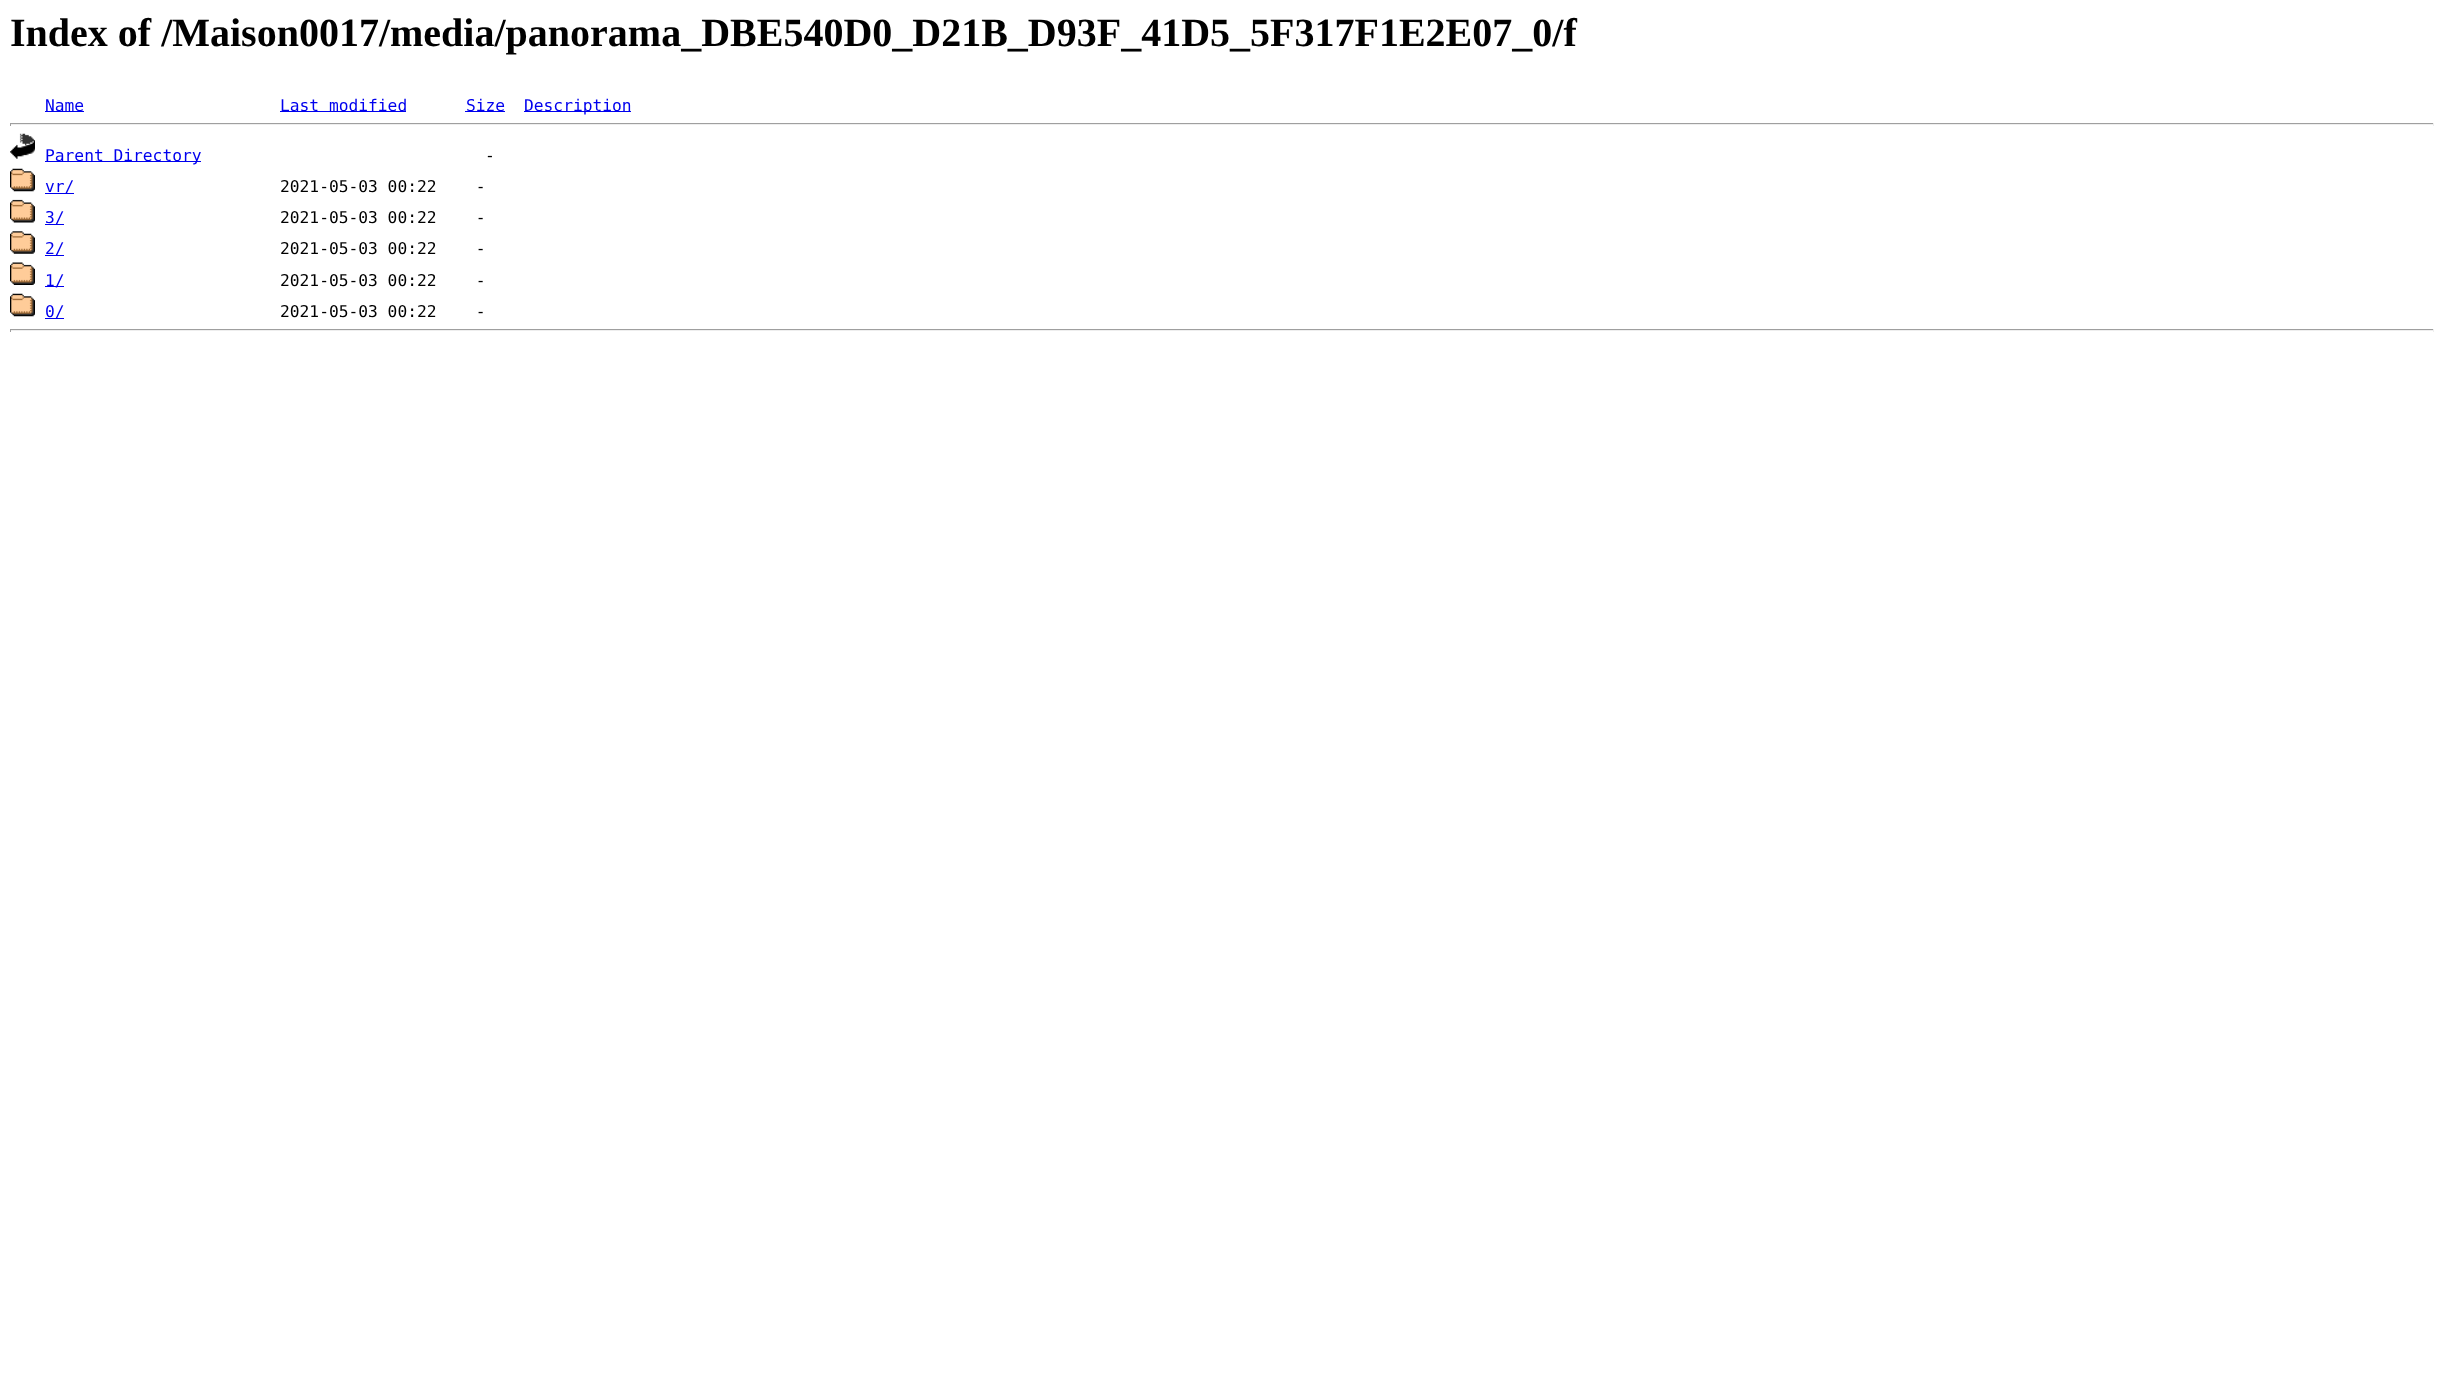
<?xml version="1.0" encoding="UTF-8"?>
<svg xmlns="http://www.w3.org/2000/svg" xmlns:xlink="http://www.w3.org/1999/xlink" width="2443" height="1385">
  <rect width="100%" height="100%" fill="#ffffff" />
  <rect x="45" y="111" width="39" height="1" fill="#0000ee" />
  <rect x="280" y="111" width="126" height="1" fill="#0000ee" />
  <rect x="465" y="111" width="40" height="1" fill="#0000ee" />
  <rect x="524" y="111" width="107" height="1" fill="#0000ee" />
  <rect x="10" y="123" width="2424" height="1" fill="#9f9f9f" />
  <rect x="2433" y="123" width="1" height="3" fill="#eeeeee" />
  <rect x="10" y="124" width="2424" height="1" fill="#eeeeee" />
  <rect x="10" y="123" width="1" height="3" fill="#9f9f9f" />
  <image x="10" y="133" width="25" height="26" xlink:href="image1.png" />
  <rect x="45" y="161" width="156" height="1" fill="#0000ee" />
  <image x="10" y="168" width="25" height="24" xlink:href="image2.png" />
  <rect x="45" y="193" width="29" height="1" fill="#0000ee" />
  <image x="10" y="199" width="25" height="24" xlink:href="image3.png" />
  <rect x="45" y="224" width="19" height="1" fill="#0000ee" />
  <image x="10" y="231" width="25" height="23" xlink:href="image4.png" />
  <rect x="45" y="255" width="19" height="1" fill="#0000ee" />
  <image x="10" y="262" width="25" height="23" xlink:href="image5.png" />
  <rect x="45" y="286" width="19" height="1" fill="#0000ee" />
  <image x="10" y="293" width="25" height="24" xlink:href="image6.png" />
  <rect x="45" y="318" width="19" height="1" fill="#0000ee" />
  <rect x="10" y="329" width="2424" height="1" fill="#9f9f9f" />
  <rect x="2433" y="329" width="1" height="3" fill="#eeeeee" />
  <rect x="10" y="330" width="2424" height="1" fill="#eeeeee" />
  <rect x="10" y="329" width="1" height="3" fill="#9f9f9f" />
  <text x="10" y="46" style="font-family: Liberation Serif; font-size: 40px; font-weight: bold; fill: #000000">Index of /Maison0017/media/panorama_DBE540D0_D21B_D93F_41D5_5F317F1E2E07_0/f</text>
  <text x="45" y="111" style="font-family: DejaVu Sans Mono; font-size: 16.25px; fill: #0000ee">Name</text>
  <text x="280" y="111" style="font-family: DejaVu Sans Mono; font-size: 16.25px; fill: #0000ee">Last modified</text>
  <text x="466" y="111" style="font-family: DejaVu Sans Mono; font-size: 16.25px; fill: #0000ee">Size</text>
  <text x="524" y="111" style="font-family: DejaVu Sans Mono; font-size: 16.25px; fill: #0000ee">Description</text>
  <text x="45" y="161" style="font-family: DejaVu Sans Mono; font-size: 16.25px; fill: #0000ee">Parent Directory</text>
  <text x="485" y="161" style="font-family: DejaVu Sans Mono; font-size: 16.25px; fill: #000000">-</text>
  <text x="45" y="192" style="font-family: DejaVu Sans Mono; font-size: 16.25px; fill: #0000ee">vr/</text>
  <text x="280" y="192" style="font-family: DejaVu Sans Mono; font-size: 16.25px; fill: #000000" xml:space="preserve">2021-05-03 00:22    -</text>
  <text x="45" y="223" style="font-family: DejaVu Sans Mono; font-size: 16.25px; fill: #0000ee">3/</text>
  <text x="280" y="223" style="font-family: DejaVu Sans Mono; font-size: 16.25px; fill: #000000" xml:space="preserve">2021-05-03 00:22    -</text>
  <text x="45" y="254" style="font-family: DejaVu Sans Mono; font-size: 16.25px; fill: #0000ee">2/</text>
  <text x="280" y="254" style="font-family: DejaVu Sans Mono; font-size: 16.25px; fill: #000000" xml:space="preserve">2021-05-03 00:22    -</text>
  <text x="45" y="286" style="font-family: DejaVu Sans Mono; font-size: 16.25px; fill: #0000ee">1/</text>
  <text x="280" y="286" style="font-family: DejaVu Sans Mono; font-size: 16.25px; fill: #000000" xml:space="preserve">2021-05-03 00:22    -</text>
  <text x="45" y="317" style="font-family: DejaVu Sans Mono; font-size: 16.25px; fill: #0000ee">0/</text>
  <text x="280" y="317" style="font-family: DejaVu Sans Mono; font-size: 16.25px; fill: #000000" xml:space="preserve">2021-05-03 00:22    -</text>
</svg>
